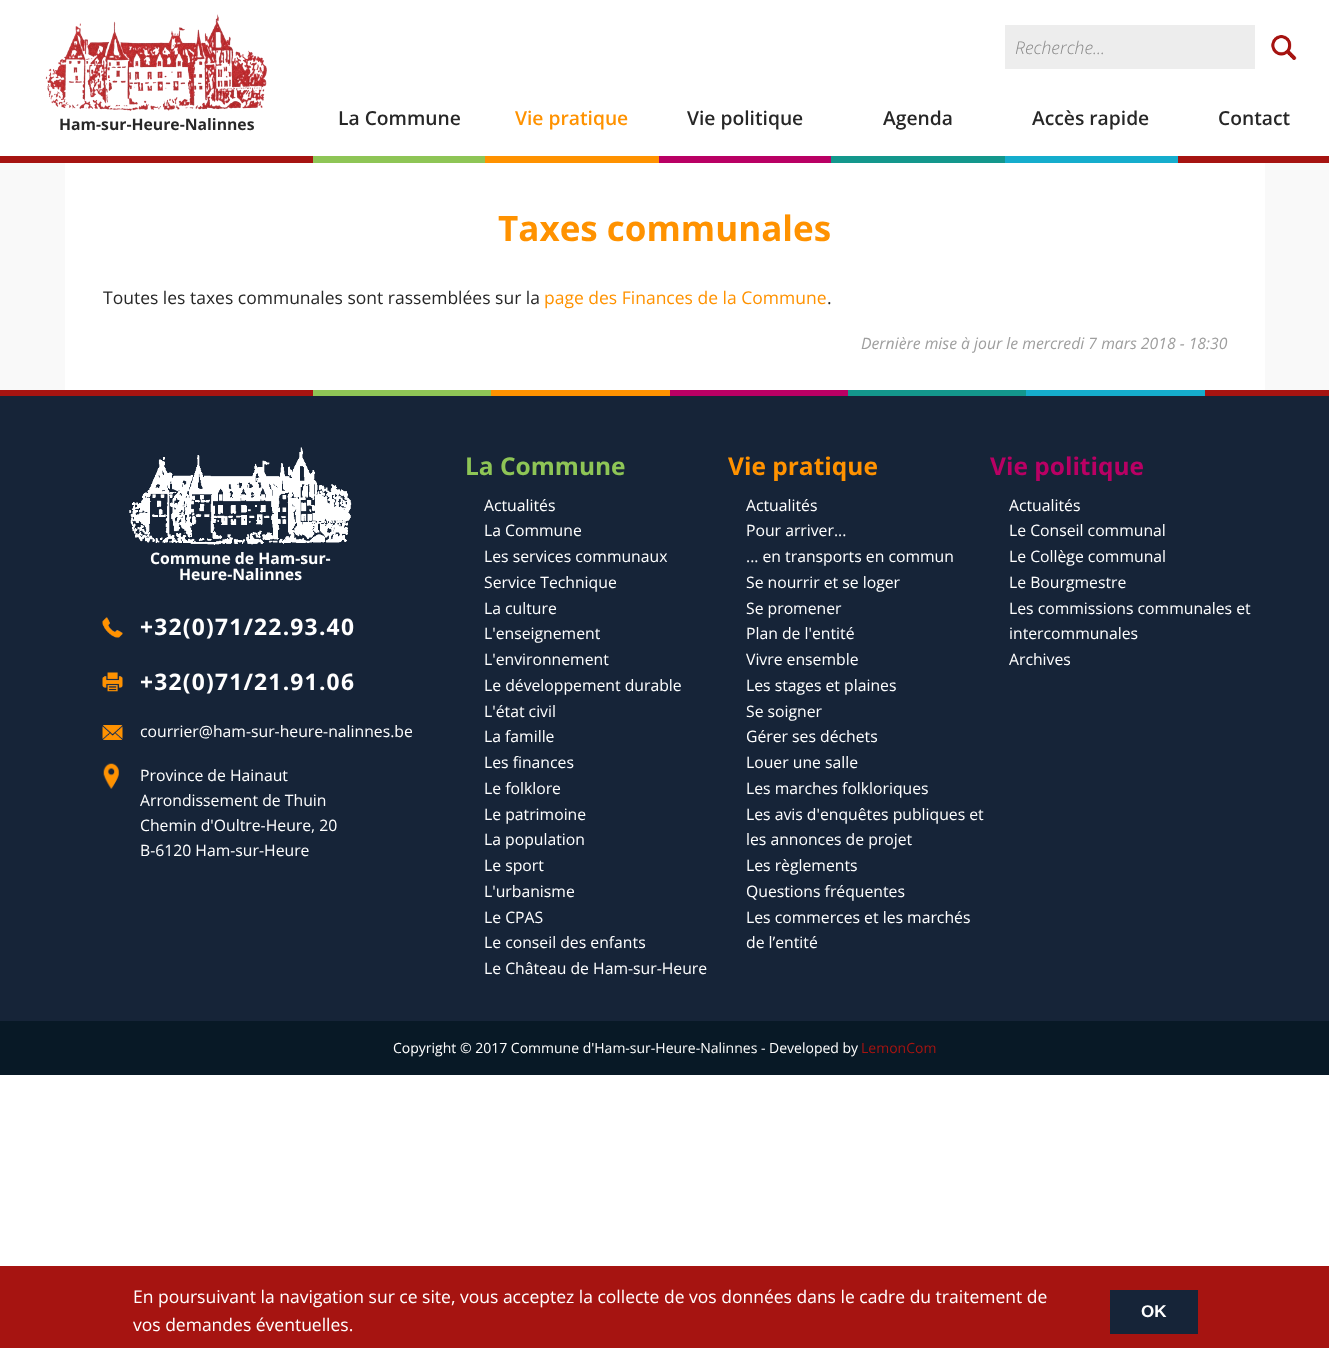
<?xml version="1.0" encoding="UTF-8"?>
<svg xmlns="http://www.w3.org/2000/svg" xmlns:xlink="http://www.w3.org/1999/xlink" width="1329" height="1348">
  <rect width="100%" height="100%" fill="#ffffff" />
  <rect y="156" width="1329" height="7" fill="#a61411" />
  <rect x="1005" y="25" width="250" height="44" fill="#ededed" />
  <image x="1271" y="35" width="26" height="25" xlink:href="image1.png" />
  <image x="45" y="14" width="222" height="97" xlink:href="image2.png" />
  <rect x="313" y="156" width="172" height="7" fill="#8ec556" />
  <rect x="485" y="156" width="174" height="7" fill="#ff9200" />
  <rect x="659" y="156" width="172" height="7" fill="#b90064" />
  <rect x="831" y="156" width="174" height="7" fill="#13978c" />
  <rect x="1005" y="156" width="173" height="7" fill="#15adcd" />
  <rect y="163" width="1329" height="227" fill="#f9f9f9" />
  <rect x="65" y="163" width="1200" height="227" fill="#ffffff" />
  <rect y="396" width="1329" height="625" fill="#162438" />
  <rect y="390" width="1329" height="6" fill="#a61411" />
  <rect x="313" y="390" width="178" height="6" fill="#8ec556" />
  <rect x="491" y="390" width="179" height="6" fill="#ff9200" />
  <rect x="670" y="390" width="178" height="6" fill="#b90064" />
  <rect x="848" y="390" width="178" height="6" fill="#13978c" />
  <rect x="1026" y="390" width="179" height="6" fill="#15adcd" />
  <image x="129" y="447" width="223" height="98" xlink:href="image3.png" />
  <image x="102" y="617" width="21" height="21" xlink:href="image4.png" />
  <image x="102" y="672" width="21" height="20" xlink:href="image5.png" />
  <image x="102" y="725" width="21" height="15" xlink:href="image6.png" />
  <image x="103" y="763" width="16" height="26" xlink:href="image7.png" />
  <rect y="1021" width="1329" height="54" fill="#081926" />
  <rect y="1266" width="1329" height="82" fill="#a61411" />
  <rect x="1110" y="1290" width="88" height="44" fill="#162438" />
  <text x="1015" y="54" style="font-family: Open Sans; font-size: 17.5px; font-weight: 300; font-style: italic; fill: #898989">Recherche...</text>
  <text x="59" y="130" style="font-family: Open Sans; font-size: 15.75px; font-weight: bold; fill: #272727">Ham-sur-Heure-Nalinnes</text>
  <text x="338" y="125" style="font-family: Open Sans; font-size: 19.25px; font-weight: 600; fill: #272727">La Commune</text>
  <text x="515" y="125" style="font-family: Open Sans; font-size: 19.25px; font-weight: 600; fill: #ff9200">Vie pratique</text>
  <text x="687" y="125" style="font-family: Open Sans; font-size: 19.25px; font-weight: 600; fill: #272727">Vie politique</text>
  <text x="883" y="125" style="font-family: Open Sans; font-size: 19.25px; font-weight: 600; fill: #272727">Agenda</text>
  <text x="1032" y="125" style="font-family: Open Sans; font-size: 19.25px; font-weight: 600; fill: #272727">Accès rapide</text>
  <text x="1218" y="125" style="font-family: Open Sans; font-size: 19.25px; font-weight: 600; fill: #272727">Contact</text>
  <text x="498" y="241" style="font-family: Open Sans; font-size: 35px; font-weight: bold; fill: #ff9200">Taxes communales</text>
  <text x="103" y="304" style="font-family: Open Sans; font-size: 17.5px; fill: #272727">Toutes les taxes communales sont rassemblées sur la</text>
  <text x="544" y="304" style="font-family: Open Sans; font-size: 17.5px; fill: #ff9200">page des Finances de la Commune</text>
  <text x="827" y="304" style="font-family: Open Sans; font-size: 17.5px; fill: #272727">.</text>
  <text x="861" y="349" style="font-family: Open Sans; font-size: 15.75px; font-style: italic; fill: #9e9e9e">Dernière mise à jour le mercredi 7 mars 2018 - 18:30</text>
  <text x="150" y="564" style="font-family: Open Sans; font-size: 15.75px; font-weight: bold; fill: #ffffff">Commune de Ham-sur-</text>
  <text x="179" y="580" style="font-family: Open Sans; font-size: 15.75px; font-weight: bold; fill: #ffffff">Heure-Nalinnes</text>
  <text x="465" y="475" style="font-family: Open Sans; font-size: 24.5px; font-weight: bold; fill: #8ec556">La Commune</text>
  <text x="484" y="511" style="font-family: Open Sans; font-size: 15.75px; fill: #ffffff">Actualités</text>
  <text x="484" y="536" style="font-family: Open Sans; font-size: 15.75px; fill: #ffffff">La Commune</text>
  <text x="484" y="562" style="font-family: Open Sans; font-size: 15.75px; fill: #ffffff">Les services communaux</text>
  <text x="484" y="588" style="font-family: Open Sans; font-size: 15.75px; fill: #ffffff">Service Technique</text>
  <text x="484" y="614" style="font-family: Open Sans; font-size: 15.75px; fill: #ffffff">La culture</text>
  <text x="484" y="639" style="font-family: Open Sans; font-size: 15.75px; fill: #ffffff">L'enseignement</text>
  <text x="484" y="665" style="font-family: Open Sans; font-size: 15.75px; fill: #ffffff">L'environnement</text>
  <text x="484" y="691" style="font-family: Open Sans; font-size: 15.75px; fill: #ffffff">Le développement durable</text>
  <text x="484" y="717" style="font-family: Open Sans; font-size: 15.75px; fill: #ffffff">L'état civil</text>
  <text x="484" y="742" style="font-family: Open Sans; font-size: 15.75px; fill: #ffffff">La famille</text>
  <text x="484" y="768" style="font-family: Open Sans; font-size: 15.75px; fill: #ffffff">Les finances</text>
  <text x="484" y="794" style="font-family: Open Sans; font-size: 15.75px; fill: #ffffff">Le folklore</text>
  <text x="484" y="820" style="font-family: Open Sans; font-size: 15.75px; fill: #ffffff">Le patrimoine</text>
  <text x="484" y="845" style="font-family: Open Sans; font-size: 15.75px; fill: #ffffff">La population</text>
  <text x="484" y="871" style="font-family: Open Sans; font-size: 15.75px; fill: #ffffff">Le sport</text>
  <text x="484" y="897" style="font-family: Open Sans; font-size: 15.75px; fill: #ffffff">L'urbanisme</text>
  <text x="484" y="923" style="font-family: Open Sans; font-size: 15.75px; fill: #ffffff">Le CPAS</text>
  <text x="484" y="948" style="font-family: Open Sans; font-size: 15.75px; fill: #ffffff">Le conseil des enfants</text>
  <text x="484" y="974" style="font-family: Open Sans; font-size: 15.75px; fill: #ffffff">Le Château de Ham-sur-Heure</text>
  <text x="728" y="475" style="font-family: Open Sans; font-size: 24.5px; font-weight: bold; fill: #ff9200">Vie pratique</text>
  <text x="746" y="511" style="font-family: Open Sans; font-size: 15.75px; fill: #ffffff">Actualités</text>
  <text x="746" y="536" style="font-family: Open Sans; font-size: 15.75px; fill: #ffffff">Pour arriver...</text>
  <text x="746" y="562" style="font-family: Open Sans; font-size: 15.75px; fill: #ffffff">... en transports en commun</text>
  <text x="746" y="588" style="font-family: Open Sans; font-size: 15.75px; fill: #ffffff">Se nourrir et se loger</text>
  <text x="746" y="614" style="font-family: Open Sans; font-size: 15.75px; fill: #ffffff">Se promener</text>
  <text x="746" y="639" style="font-family: Open Sans; font-size: 15.75px; fill: #ffffff">Plan de l'entité</text>
  <text x="746" y="665" style="font-family: Open Sans; font-size: 15.75px; fill: #ffffff">Vivre ensemble</text>
  <text x="746" y="691" style="font-family: Open Sans; font-size: 15.75px; fill: #ffffff">Les stages et plaines</text>
  <text x="746" y="717" style="font-family: Open Sans; font-size: 15.75px; fill: #ffffff">Se soigner</text>
  <text x="746" y="742" style="font-family: Open Sans; font-size: 15.75px; fill: #ffffff">Gérer ses déchets</text>
  <text x="746" y="768" style="font-family: Open Sans; font-size: 15.75px; fill: #ffffff">Louer une salle</text>
  <text x="746" y="794" style="font-family: Open Sans; font-size: 15.75px; fill: #ffffff">Les marches folkloriques</text>
  <text x="746" y="820" style="font-family: Open Sans; font-size: 15.75px; fill: #ffffff">Les avis d'enquêtes publiques et</text>
  <text x="746" y="845" style="font-family: Open Sans; font-size: 15.75px; fill: #ffffff">les annonces de projet</text>
  <text x="746" y="871" style="font-family: Open Sans; font-size: 15.75px; fill: #ffffff">Les règlements</text>
  <text x="746" y="897" style="font-family: Open Sans; font-size: 15.75px; fill: #ffffff">Questions fréquentes</text>
  <text x="746" y="923" style="font-family: Open Sans; font-size: 15.75px; fill: #ffffff">Les commerces et les marchés</text>
  <text x="746" y="948" style="font-family: Open Sans; font-size: 15.75px; fill: #ffffff">de l’entité</text>
  <text x="990" y="475" style="font-family: Open Sans; font-size: 24.5px; font-weight: bold; fill: #b90064">Vie politique</text>
  <text x="1009" y="511" style="font-family: Open Sans; font-size: 15.75px; fill: #ffffff">Actualités</text>
  <text x="1009" y="536" style="font-family: Open Sans; font-size: 15.75px; fill: #ffffff">Le Conseil communal</text>
  <text x="1009" y="562" style="font-family: Open Sans; font-size: 15.75px; fill: #ffffff">Le Collège communal</text>
  <text x="1009" y="588" style="font-family: Open Sans; font-size: 15.75px; fill: #ffffff">Le Bourgmestre</text>
  <text x="1009" y="614" style="font-family: Open Sans; font-size: 15.75px; fill: #ffffff">Les commissions communales et</text>
  <text x="1009" y="639" style="font-family: Open Sans; font-size: 15.75px; fill: #ffffff">intercommunales</text>
  <text x="1009" y="665" style="font-family: Open Sans; font-size: 15.75px; fill: #ffffff">Archives</text>
  <text x="140" y="635" style="font-family: Open Sans; font-size: 22.75px; font-weight: bold; letter-spacing: 1.25px; fill: #ffffff">+32(0)71/22.93.40</text>
  <text x="140" y="690" style="font-family: Open Sans; font-size: 22.75px; font-weight: bold; letter-spacing: 1.25px; fill: #ffffff">+32(0)71/21.91.06</text>
  <text x="140" y="737" style="font-family: Open Sans; font-size: 15.75px; fill: #ffffff">courrier@ham-sur-heure-nalinnes.be</text>
  <text x="140" y="781" style="font-family: Open Sans; font-size: 15.75px; fill: #ffffff">Province de Hainaut</text>
  <text x="140" y="806" style="font-family: Open Sans; font-size: 15.75px; fill: #ffffff">Arrondissement de Thuin</text>
  <text x="140" y="831" style="font-family: Open Sans; font-size: 15.75px; fill: #ffffff">Chemin d'Oultre-Heure, 20</text>
  <text x="140" y="856" style="font-family: Open Sans; font-size: 15.75px; fill: #ffffff">B-6120 Ham-sur-Heure</text>
  <text x="393" y="1053" style="font-family: Open Sans; font-size: 14px; fill: #ffffff">Copyright © 2017 Commune d'Ham-sur-Heure-Nalinnes - Developed by</text>
  <text x="861" y="1053" style="font-family: Open Sans; font-size: 14px; fill: #a61411">LemonCom</text>
  <text x="133" y="1303" style="font-family: Open Sans; font-size: 17.5px; fill: #ffffff">En poursuivant la navigation sur ce site, vous acceptez la collecte de vos données dans le cadre du traitement de</text>
  <text x="133" y="1331" style="font-family: Open Sans; font-size: 17.5px; fill: #ffffff">vos demandes éventuelles.</text>
  <text x="1141" y="1317" style="font-family: Liberation Sans; font-size: 17px; font-weight: bold; fill: #ffffff">OK</text>
</svg>
